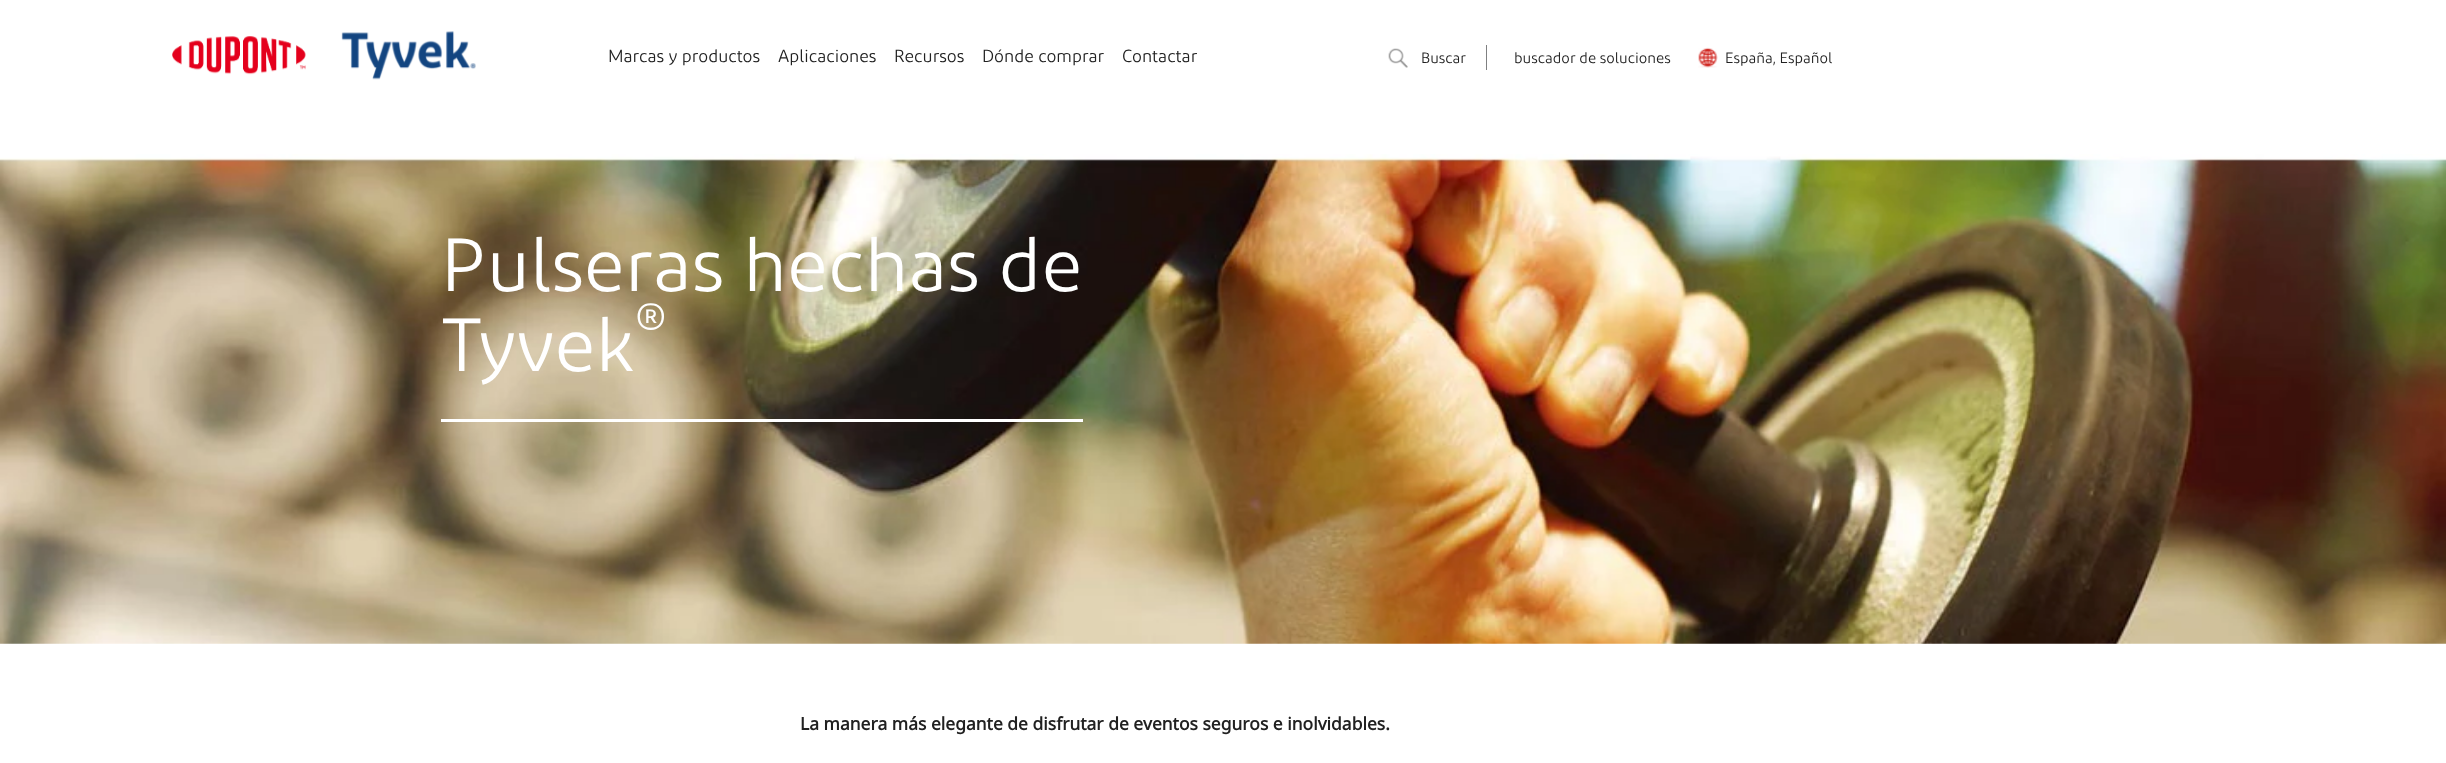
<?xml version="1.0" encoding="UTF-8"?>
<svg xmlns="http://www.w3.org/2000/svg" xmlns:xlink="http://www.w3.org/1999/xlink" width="2446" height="763">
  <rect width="100%" height="100%" fill="#ffffff" />
  <image x="172" y="36" width="134" height="39" xlink:href="image1.png" />
  <image x="341" y="31" width="135" height="49" xlink:href="image2.png" />
  <rect x="1486" y="45" width="1" height="25" fill="#7f8081" />
  <image x="1388" y="48" width="20" height="20" xlink:href="image3.png" />
  <image x="1698" y="47" width="20" height="21" xlink:href="image4.png" />
  <image x="0" y="154" width="2446" height="490" xlink:href="image5.png" />
  <rect x="441" y="419" width="642" height="3" fill="#ffffff" />
  <text x="608" y="62" style="font-family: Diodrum; font-size: 17.5px; fill: #212121">Marcas y productos</text>
  <text x="778" y="62" style="font-family: Diodrum; font-size: 17.5px; fill: #212121">Aplicaciones</text>
  <text x="894" y="62" style="font-family: Diodrum; font-size: 17.5px; fill: #212121">Recursos</text>
  <text x="982" y="62" style="font-family: Diodrum; font-size: 17.5px; fill: #212121">Dónde comprar</text>
  <text x="1122" y="62" style="font-family: Diodrum; font-size: 17.5px; fill: #212121">Contactar</text>
  <text x="1421" y="63" style="font-family: Diodrum; font-size: 15px; fill: #212121">Buscar</text>
  <text x="1514" y="63" style="font-family: Diodrum; font-size: 15px; fill: #212121">buscador de soluciones</text>
  <text x="1725" y="63" style="font-family: Diodrum; font-size: 15px; fill: #212121">España, Español</text>
  <text x="441" y="291" style="font-family: Diodrum; font-size: 75px; fill: #ffffff">Pulseras hechas de</text>
  <text x="441" y="371" style="font-family: Diodrum; font-size: 75px; fill: #ffffff">Tyvek</text>
  <text x="635" y="343" style="font-family: Diodrum; font-size: 56px; fill: #ffffff">®</text>
  <text x="800" y="730" style="font-family: Noto Sans; font-size: 17.5px; font-weight: bold; fill: #212121">La manera más elegante de disfrutar de eventos seguros e inolvidables.</text>
</svg>
